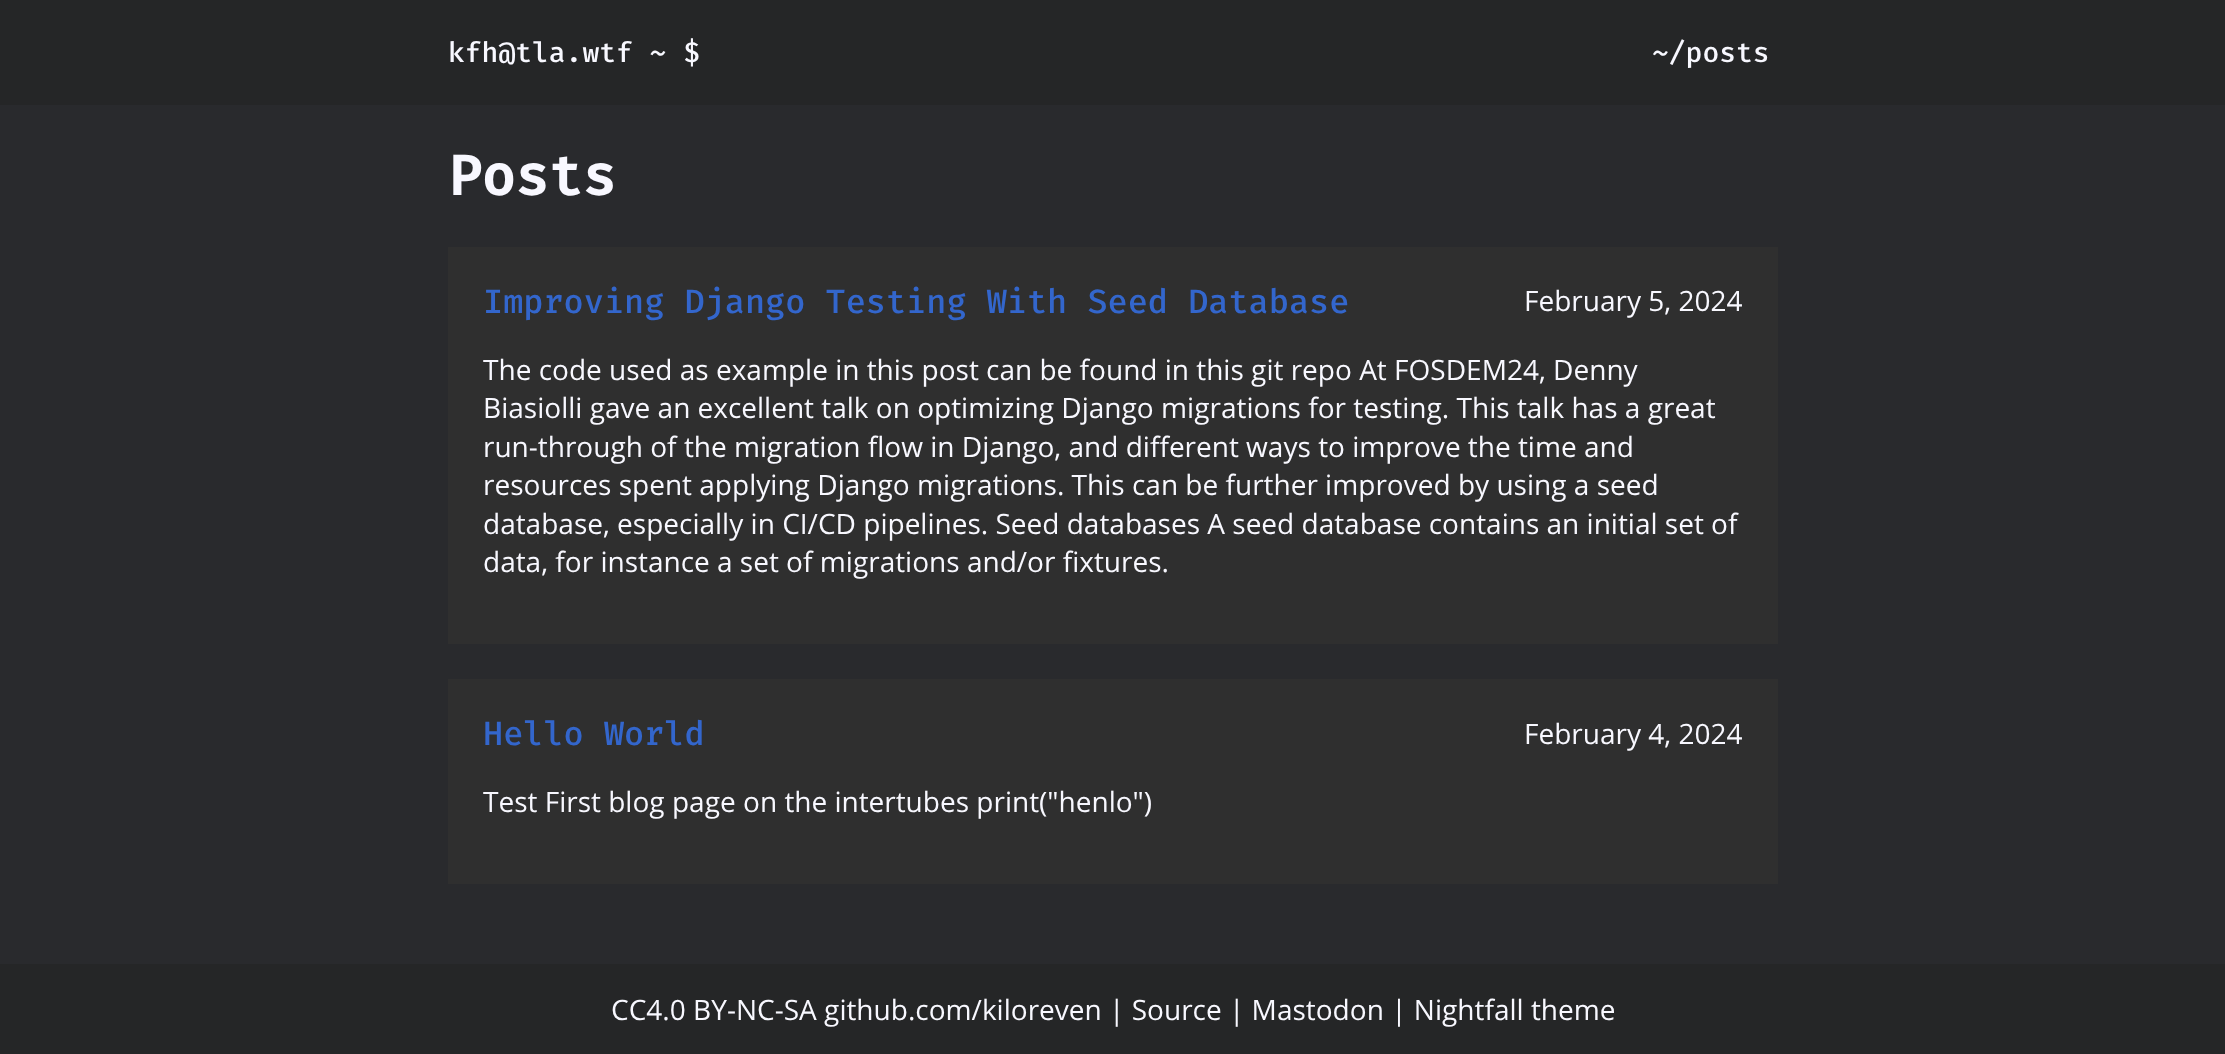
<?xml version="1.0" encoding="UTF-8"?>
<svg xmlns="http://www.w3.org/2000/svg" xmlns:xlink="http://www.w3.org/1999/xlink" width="2225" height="1054">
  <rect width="100%" height="100%" fill="#292a2d" />
  <rect width="2225" height="105" fill="#252627" />
  <rect x="448" y="247" width="1330" height="397" fill="#2f2f2f" />
  <rect x="448" y="679" width="1330" height="205" fill="#2f2f2f" />
  <rect y="964" width="2225" height="90" fill="#252627" />
  <text x="448" y="62" style="font-family: Fira Mono; font-size: 28px; font-weight: 500; fill: #f8f8ff">kfh@tla.wtf ~ $</text>
  <text x="1652" y="62" style="font-family: Fira Mono; font-size: 28px; font-weight: 500; fill: #f8f8ff">~/posts</text>
  <text x="448" y="195" style="font-family: Fira Mono; font-size: 56px; font-weight: bold; fill: #f8f8ff">Posts</text>
  <text x="483" y="313" style="font-family: Fira Mono; font-size: 33.6px; font-weight: 500; fill: #3366cc">Improving Django Testing With Seed Database</text>
  <text x="1524" y="311" style="font-family: Open Sans; font-size: 28px; fill: #f8f8ff">February 5, 2024</text>
  <text x="483" y="380" style="font-family: Open Sans; font-size: 28px; fill: #f8f8ff">The code used as example in this post can be found in this git repo At FOSDEM24, Denny</text>
  <text x="483" y="418" style="font-family: Open Sans; font-size: 28px; fill: #f8f8ff">Biasiolli gave an excellent talk on optimizing Django migrations for testing. This talk has a great</text>
  <text x="483" y="457" style="font-family: Open Sans; font-size: 28px; fill: #f8f8ff">run-through of the migration flow in Django, and different ways to improve the time and</text>
  <text x="483" y="495" style="font-family: Open Sans; font-size: 28px; fill: #f8f8ff">resources spent applying Django migrations. This can be further improved by using a seed</text>
  <text x="483" y="534" style="font-family: Open Sans; font-size: 28px; fill: #f8f8ff">database, especially in CI/CD pipelines. Seed databases A seed database contains an initial set of</text>
  <text x="483" y="572" style="font-family: Open Sans; font-size: 28px; fill: #f8f8ff">data, for instance a set of migrations and/or fixtures.</text>
  <text x="483" y="745" style="font-family: Fira Mono; font-size: 33.6px; font-weight: 500; fill: #3366cc">Hello World</text>
  <text x="1524" y="744" style="font-family: Open Sans; font-size: 28px; fill: #f8f8ff">February 4, 2024</text>
  <text x="483" y="812" style="font-family: Open Sans; font-size: 28px; fill: #f8f8ff">Test First blog page on the intertubes print("henlo")</text>
  <text x="611" y="1020" style="font-family: Open Sans; font-size: 28px; fill: #f8f8ff">CC4.0 BY-NC-SA github.com/kiloreven | Source | Mastodon | Nightfall theme</text>
</svg>
